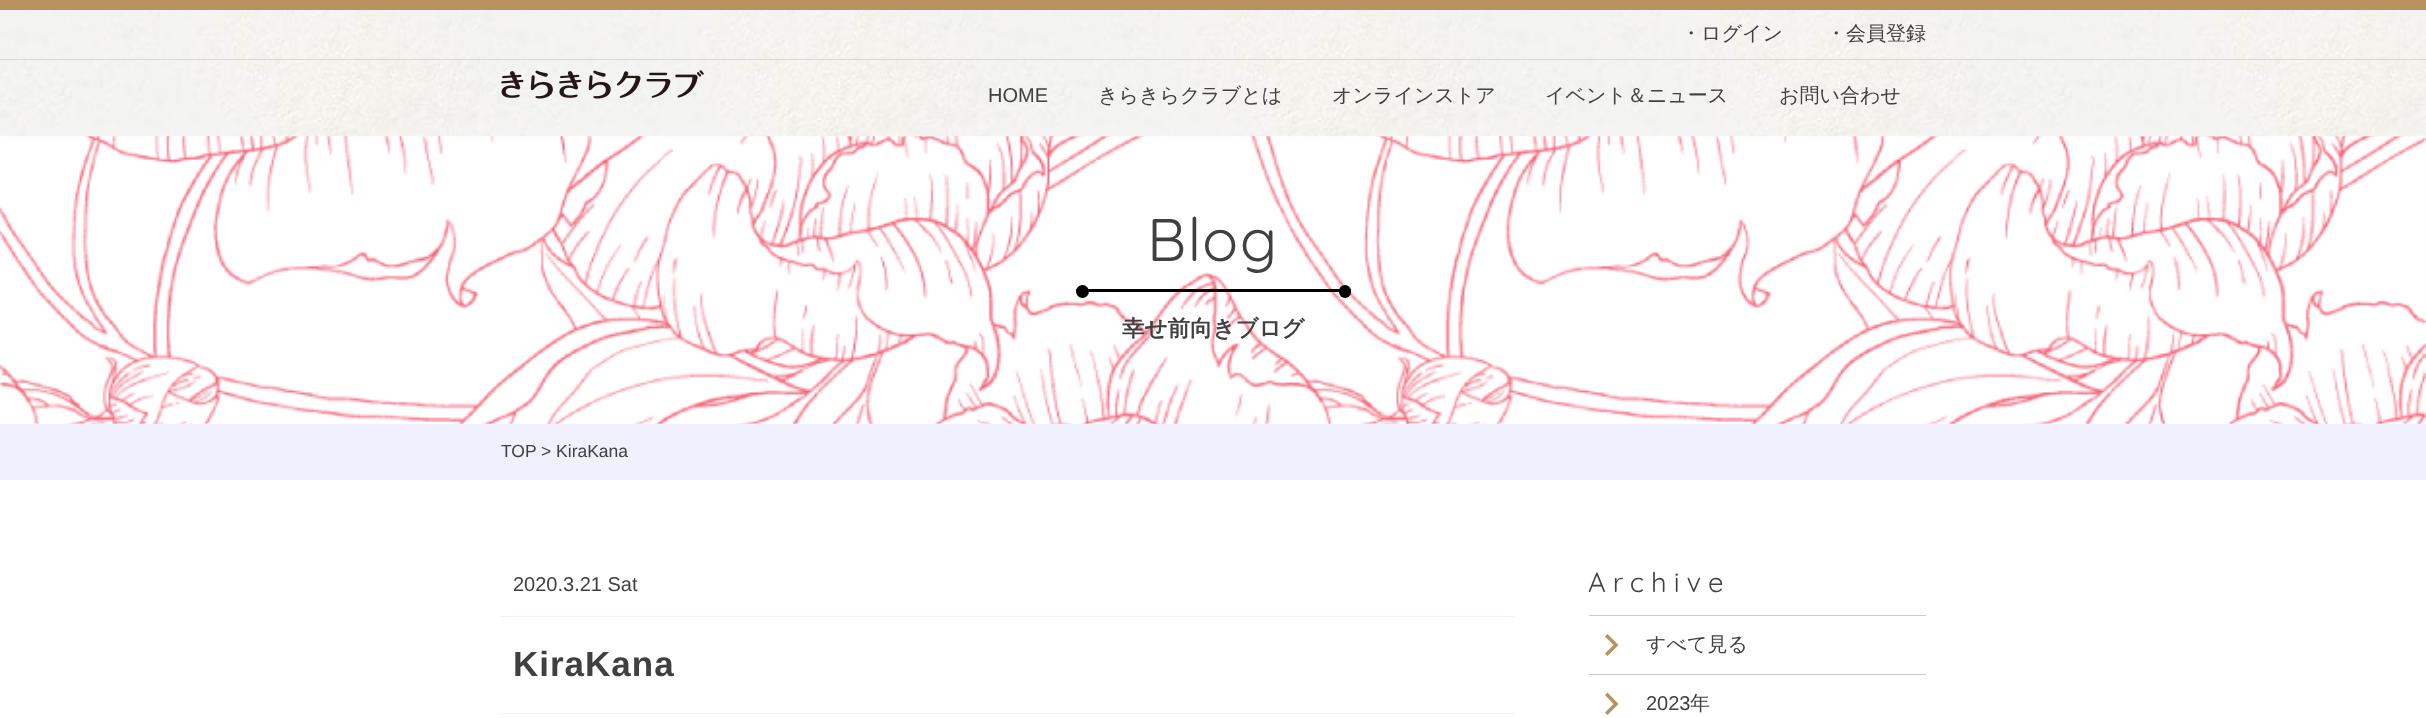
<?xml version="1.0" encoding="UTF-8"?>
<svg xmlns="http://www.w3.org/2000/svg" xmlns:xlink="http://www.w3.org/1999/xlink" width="2426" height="718">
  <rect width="100%" height="100%" fill="#ffffff" />
  <image x="0" y="136" width="2426" height="288" xlink:href="image3.png" />
  <image x="0" y="10" width="2426" height="127" xlink:href="image1.png" />
  <rect width="2426" height="10" fill="#b8925f" />
  <rect y="59" width="2426" height="1" fill="#d6d6d6" />
  <image x="501" y="70" width="203" height="29" xlink:href="image2.png" />
  <rect x="1076" y="289" width="275" height="3" fill="#000000" />
  <circle cx="1082.5" cy="291.5" r="6.5" fill="#000000" />
  <rect x="1339" y="285" width="12" height="13" rx="6" fill="#000000" />
  <rect y="424" width="2426" height="56" fill="#f0f0ff" />
  <rect x="501" y="616" width="1013" height="1" fill="#f0f0ff" />
  <rect x="501" y="713" width="1013" height="1" fill="#f0f0ff" />
  <rect x="1589" y="615" width="337" height="1" fill="#cccccc" />
  <rect x="1589" y="674" width="337" height="1" fill="#cccccc" />
  <path d="M 1605 653.5 l 8.5 -8.5 l -8.5 -8.5 l 2.5 -2.5 l 11 11 l -11 11 z" fill="#b8925f" />
  <path d="M 1605 712.5 l 8.5 -8.5 l -8.5 -9 l 2.5 -2.5 l 11 11.5 l -11 11 z" fill="#b8925f" />
  <text x="1681" y="40" style="font-family: WenQuanYi Zen Hei; font-size: 20px; font-weight: 500; fill: #404040">・ログイン</text>
  <text x="1826" y="40" style="font-family: WenQuanYi Zen Hei; font-size: 20px; font-weight: 500; fill: #404040">・会員登録</text>
  <text x="988" y="102" style="font-family: Liberation Sans; font-size: 20px; fill: #404040">HOME</text>
  <text x="1098" y="102" style="font-family: WenQuanYi Zen Hei; font-size: 20px; font-weight: 500; fill: #404040">きらきらクラブとは</text>
  <text x="1332" y="102" style="font-family: WenQuanYi Zen Hei; font-size: 20px; font-weight: 500; fill: #404040">オンラインストア</text>
  <text x="1545" y="102" style="font-family: WenQuanYi Zen Hei; font-size: 20px; font-weight: 500; fill: #404040">イベント＆ニュース</text>
  <text x="1779" y="102" style="font-family: WenQuanYi Zen Hei; font-size: 20px; font-weight: 500; fill: #404040">お問い合わせ</text>
  <text x="1147" y="261" style="font-family: Quicksand; font-size: 60px; font-weight: 300; letter-spacing: 1.5px; fill: #404040">Blog</text>
  <text x="1122" y="336" style="font-family: WenQuanYi Zen Hei; font-size: 22.5px; font-weight: bold; fill: #404040">幸せ前向きブログ</text>
  <text x="501" y="457" style="font-family: Liberation Sans; font-size: 17.5px; fill: #404040">TOP</text>
  <text x="541" y="457" style="font-family: Liberation Sans; font-size: 17.5px; fill: #404040">&gt; KiraKana</text>
  <text x="513" y="591" style="font-family: Liberation Sans; font-size: 20px; fill: #404040">2020.3.21 Sat</text>
  <text x="513" y="676" style="font-family: Liberation Sans; font-size: 35px; font-weight: bold; letter-spacing: 1px; fill: #404040">KiraKana</text>
  <text x="1588" y="592" style="font-family: Quicksand; font-size: 27.5px; font-weight: 300; letter-spacing: 7px; fill: #404040">Archive</text>
  <text x="1646" y="651" style="font-family: WenQuanYi Zen Hei; font-size: 20px; font-weight: 500; fill: #404040">すべて見る</text>
  <text x="1646" y="710" style="font-family: Liberation Sans; font-size: 20px; fill: #404040">2023</text>
  <text x="1690" y="710" style="font-family: WenQuanYi Zen Hei; font-size: 20px; font-weight: 500; fill: #404040">年</text>
</svg>
